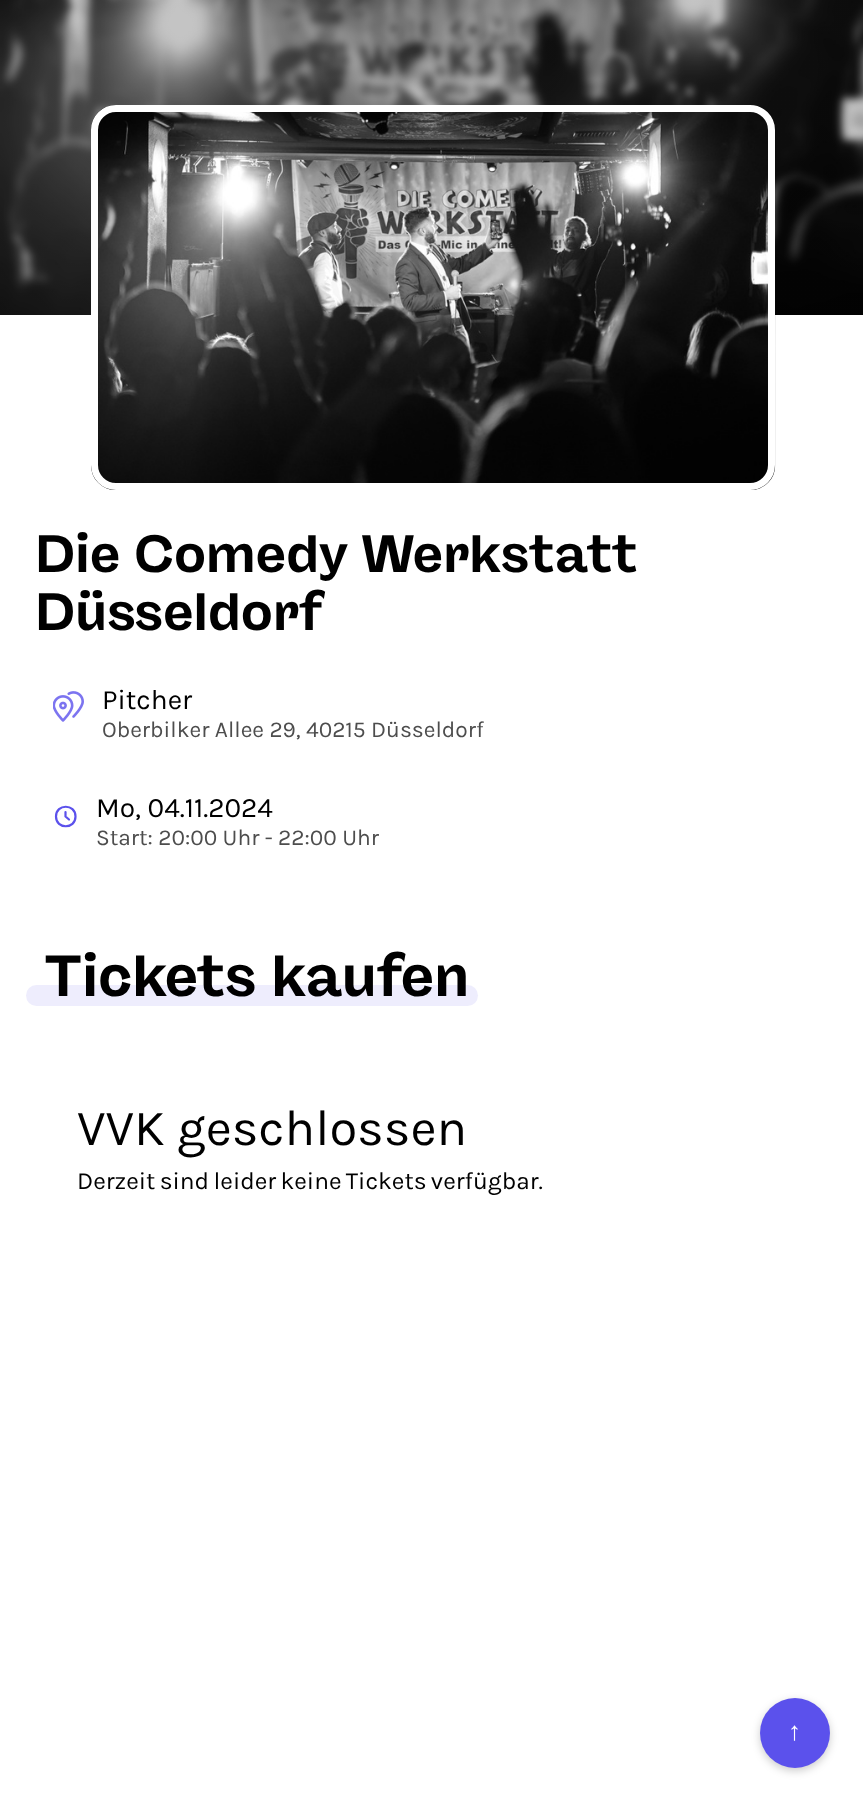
<?xml version="1.0" encoding="UTF-8"?>
<svg xmlns="http://www.w3.org/2000/svg" xmlns:xlink="http://www.w3.org/1999/xlink" width="863" height="1802">
  <rect width="100%" height="100%" fill="#ffffff" />
  <image x="0" y="0" width="863" height="315" xlink:href="image1.png" />
  <image x="91" y="105" width="685" height="385" xlink:href="image2.png" />
  <rect x="94.5" y="108.5" width="677" height="378" rx="21.5" fill="none" stroke="#ffffff" stroke-width="7" />
  <image x="53" y="691" width="31" height="31" xlink:href="image3.png" />
  <path d="M 65.5 812 v 4.5 l 3.5 3 m 6.5 -3 c 0 13 -19.5 13 -19.5 0 c 0 -13 19.5 -13 19.5 0 z" fill="none" stroke="#5b51ec" stroke-width="2.2" stroke-linecap="round" stroke-linejoin="round" />
  <rect x="26" y="985" width="452" height="21" rx="10.5" fill="#5b51ec" fill-opacity="0.1" />
  <rect x="760" y="1701" width="70" height="70" rx="35" fill="#000000" fill-opacity="0.2" filter="blur(4.5px)" />
  <circle cx="795" cy="1733" r="35" fill="#5b51ec" />
  <text x="35" y="572" style="font-family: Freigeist; font-size: 52.5px; font-weight: bold; fill: #000000">Die Comedy Werkstatt</text>
  <text x="35" y="630" style="font-family: Freigeist; font-size: 52.5px; font-weight: bold; fill: #000000">Düsseldorf</text>
  <text x="102" y="709" style="font-family: Karla; font-size: 28px; fill: #000000">Pitcher</text>
  <text x="102" y="737" style="font-family: Karla; font-size: 22.75px; fill: #4d4d4d">Oberbilker Allee 29, 40215 Düsseldorf</text>
  <text x="96" y="817" style="font-family: Karla; font-size: 28px; fill: #000000">Mo, 04.11.2024</text>
  <text x="96" y="845" style="font-family: Karla; font-size: 22.75px; fill: #4d4d4d">Start: 20:00 Uhr - 22:00 Uhr</text>
  <text x="44" y="996" style="font-family: Freigeist; font-size: 57.75px; font-weight: bold; fill: #000000">Tickets kaufen</text>
  <text x="77" y="1145" style="font-family: Karla; font-size: 50.75px; fill: #000000">VVK geschlossen</text>
  <text x="77" y="1189" word-spacing="-1.5" style="font-family: Karla; font-size: 24.5px; fill: #000000">Derzeit sind leider keine Tickets verfügbar.</text>
  <text x="788" y="1740" style="font-family: Liberation Serif; font-size: 26px; fill: #ffffff">↑</text>
</svg>
